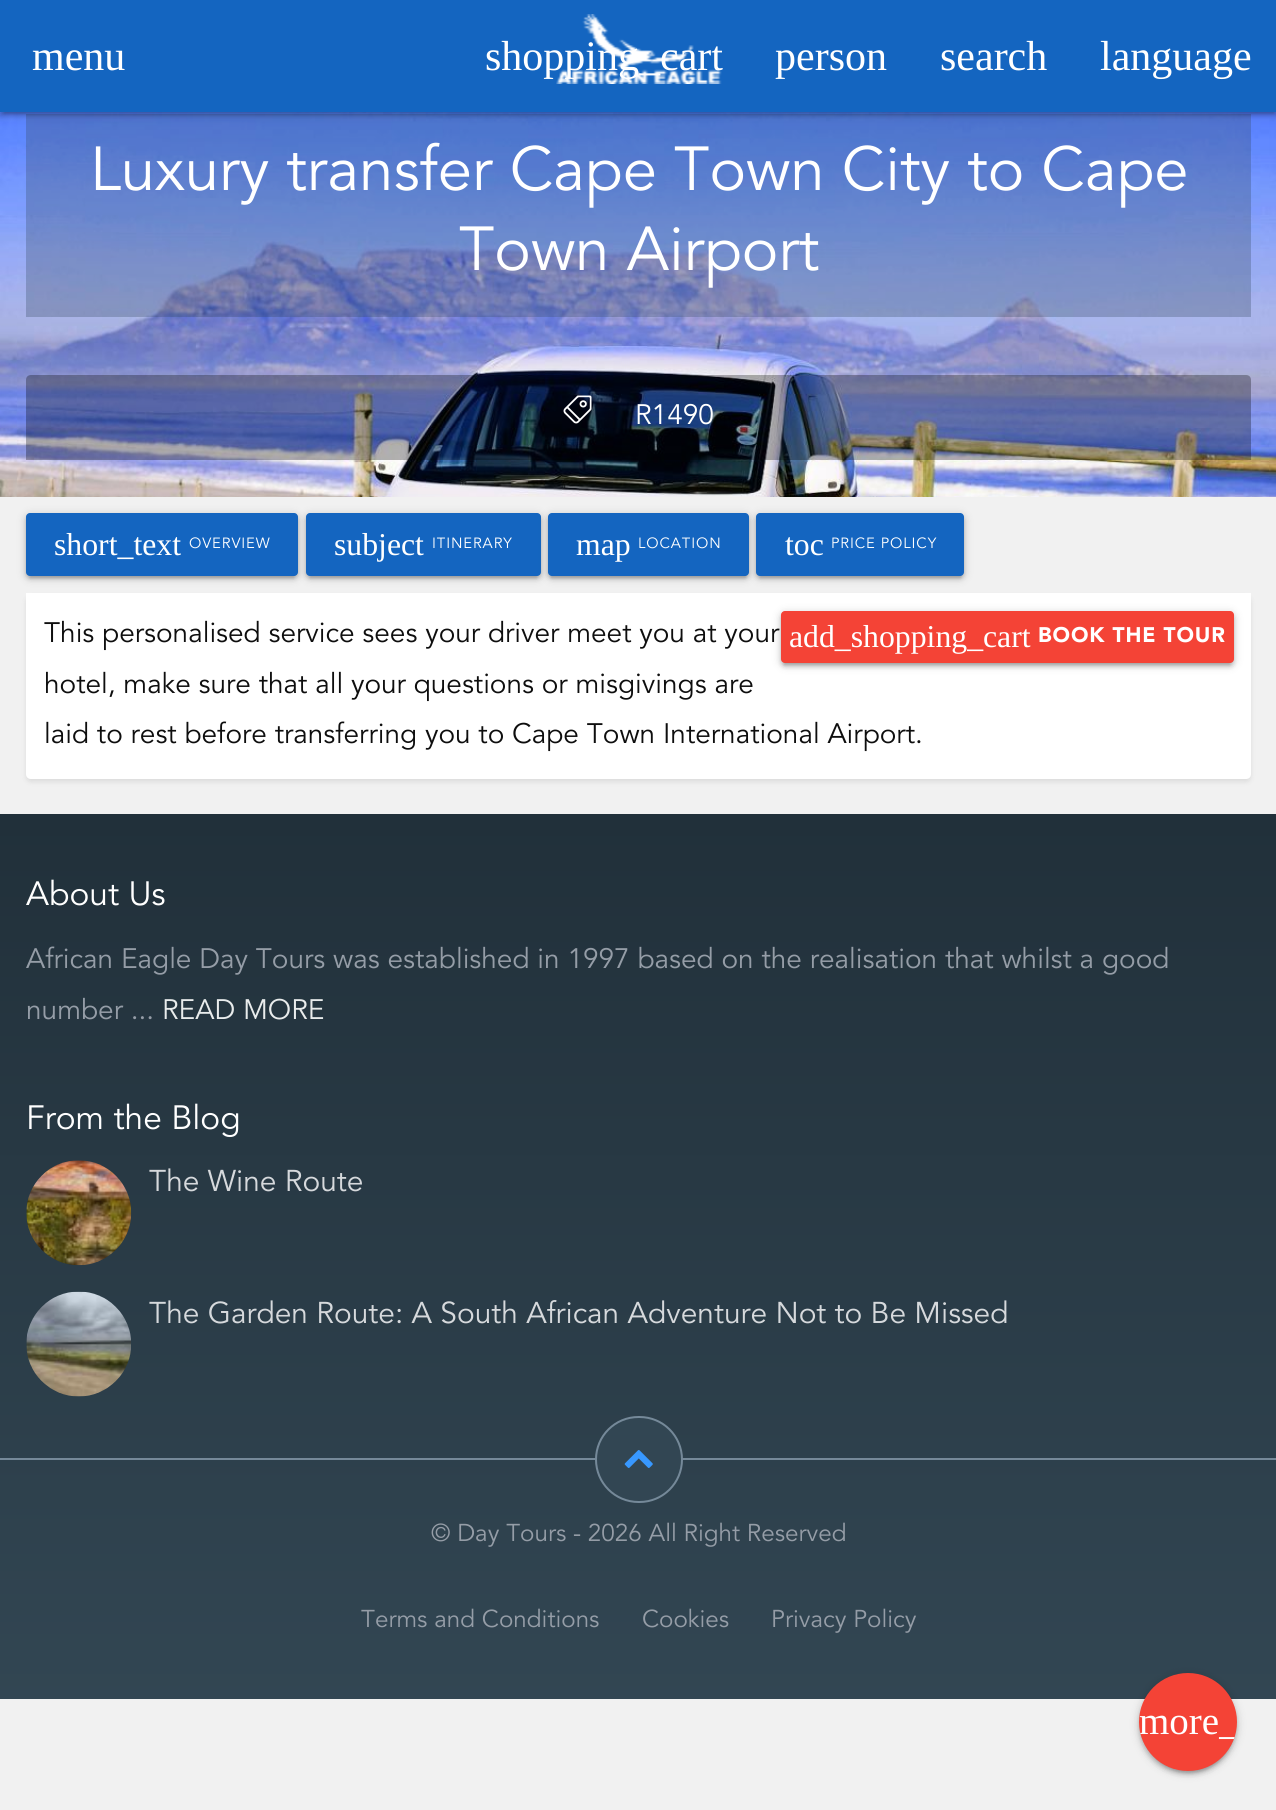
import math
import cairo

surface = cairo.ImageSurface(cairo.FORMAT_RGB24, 1276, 1810)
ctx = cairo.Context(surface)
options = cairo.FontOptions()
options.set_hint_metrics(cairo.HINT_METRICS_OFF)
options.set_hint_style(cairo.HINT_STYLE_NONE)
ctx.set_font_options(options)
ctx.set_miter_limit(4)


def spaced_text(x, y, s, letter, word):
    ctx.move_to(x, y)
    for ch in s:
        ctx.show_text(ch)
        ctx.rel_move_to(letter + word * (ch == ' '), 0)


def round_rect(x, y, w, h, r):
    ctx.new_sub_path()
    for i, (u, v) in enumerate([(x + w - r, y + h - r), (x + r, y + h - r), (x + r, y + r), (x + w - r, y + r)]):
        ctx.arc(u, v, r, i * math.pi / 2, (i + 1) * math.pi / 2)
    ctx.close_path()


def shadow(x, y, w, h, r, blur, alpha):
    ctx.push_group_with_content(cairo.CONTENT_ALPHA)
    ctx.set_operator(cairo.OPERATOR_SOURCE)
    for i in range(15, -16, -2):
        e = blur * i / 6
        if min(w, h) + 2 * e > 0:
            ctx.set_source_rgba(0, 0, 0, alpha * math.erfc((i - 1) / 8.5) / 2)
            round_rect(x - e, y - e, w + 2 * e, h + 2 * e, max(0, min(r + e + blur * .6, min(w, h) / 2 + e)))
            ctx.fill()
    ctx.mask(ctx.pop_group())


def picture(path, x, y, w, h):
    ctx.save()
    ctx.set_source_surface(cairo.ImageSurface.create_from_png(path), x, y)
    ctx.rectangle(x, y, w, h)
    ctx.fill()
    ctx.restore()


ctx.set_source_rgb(0.945, 0.945, 0.945)
ctx.paint()
picture("img2.png", 0, 112, 1276, 385)
ctx.set_source_rgba(0.2, 0.278, 0.376, 0.3)
ctx.rectangle(26, 114, 1225, 203)
ctx.fill()
ctx.set_source_rgb(0, 0, 0)
shadow(0, 2, 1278, 112, 0, 4.5, 0.2)
shadow(4, 9, 1270, 105, 0, 1, 0.12)
shadow(0, 4, 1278, 112, 0, 2, 0.14)
ctx.set_source_rgb(0.082, 0.396, 0.753)
ctx.rectangle(0, 0, 1276, 112)
ctx.fill()
ctx.select_font_face("Liberation Serif")
ctx.set_font_size(42)
ctx.set_source_rgb(1, 1, 1)
ctx.move_to(485, 70)
ctx.show_text("shopping_cart")
picture("img1.png", 556, 14, 166, 70)
ctx.move_to(32, 70)
ctx.show_text("menu")
ctx.move_to(775, 70)
ctx.show_text("person")
ctx.move_to(940, 70)
ctx.show_text("search")
ctx.move_to(1100, 70)
ctx.show_text("language")
ctx.select_font_face("Avenir")
ctx.set_font_size(61.6)
ctx.move_to(90, 190)
ctx.show_text("Luxury transfer Cape Town City to Cape")
ctx.move_to(459, 270)
ctx.show_text("Town Airport")
ctx.set_source_rgba(0, 0, 0, 0.3)
ctx.new_path()
ctx.move_to(31, 375)
ctx.line_to(1246, 375)
ctx.curve_to(1249, 375, 1251, 377, 1251, 380)
ctx.line_to(1251, 460)
ctx.line_to(26, 460)
ctx.line_to(26, 380)
ctx.curve_to(26, 377, 28, 375, 31, 375)
ctx.close_path()
ctx.fill()
picture("img3.png", 563, 395, 29, 29)
ctx.set_font_size(28)
ctx.set_source_rgb(1, 1, 1)
ctx.move_to(635, 424)
ctx.show_text("R1490")
ctx.set_source_rgb(0, 0, 0)
shadow(26, 515, 272, 63, 4, 4.5, 0.2)
shadow(30, 522, 264, 56, 0, 1, 0.12)
shadow(26, 516, 272, 63, 4, 2, 0.14)
ctx.set_source_rgb(0.082, 0.396, 0.753)
round_rect(26, 513, 272, 63, 4)
ctx.fill()
ctx.select_font_face("Liberation Serif")
ctx.set_font_size(31.75)
ctx.set_source_rgb(1, 1, 1)
ctx.move_to(54, 555)
ctx.show_text("short_text")
ctx.select_font_face("Avenir")
ctx.set_font_size(14.75)
spaced_text(189, 548, "OVERVIEW", 0.9, 0)
ctx.set_source_rgb(0, 0, 0)
shadow(306, 515, 235, 63, 4, 4.5, 0.2)
shadow(310, 522, 227, 56, 0, 1, 0.12)
shadow(306, 516, 235, 63, 4, 2, 0.14)
ctx.set_source_rgb(0.082, 0.396, 0.753)
round_rect(306, 513, 235, 63, 4)
ctx.fill()
ctx.select_font_face("Liberation Serif")
ctx.set_font_size(31.75)
ctx.set_source_rgb(1, 1, 1)
ctx.move_to(334, 555)
ctx.show_text("subject")
ctx.select_font_face("Avenir")
ctx.set_font_size(14.75)
spaced_text(432, 548, "ITINERARY", 0.9, 0)
ctx.set_source_rgb(0, 0, 0)
shadow(548, 515, 201, 63, 4, 4.5, 0.2)
shadow(551, 522, 195, 56, 0, 1, 0.12)
shadow(548, 516, 201, 63, 4, 2, 0.14)
ctx.set_source_rgb(0.082, 0.396, 0.753)
round_rect(548, 513, 201, 63, 4)
ctx.fill()
ctx.select_font_face("Liberation Serif")
ctx.set_font_size(31.75)
ctx.set_source_rgb(1, 1, 1)
ctx.move_to(576, 555)
ctx.show_text("map")
ctx.select_font_face("Avenir")
ctx.set_font_size(14.75)
spaced_text(638, 548, "LOCATION", 0.9, 0)
ctx.set_source_rgb(0, 0, 0)
shadow(756, 515, 208, 63, 4, 4.5, 0.2)
shadow(760, 522, 201, 56, 0, 1, 0.12)
shadow(756, 516, 208, 63, 4, 2, 0.14)
ctx.set_source_rgb(0.082, 0.396, 0.753)
round_rect(756, 513, 208, 63, 4)
ctx.fill()
ctx.select_font_face("Liberation Serif")
ctx.set_font_size(31.75)
ctx.set_source_rgb(1, 1, 1)
ctx.move_to(785, 555)
ctx.show_text("toc")
ctx.select_font_face("Avenir")
ctx.set_font_size(14.75)
spaced_text(831, 548, "PRICE POLICY", 0.9, 0)
ctx.set_source_rgb(0, 0, 0)
shadow(26, 597, 1225, 185, 5, 2.5, 0.09)
ctx.set_source_rgb(1, 1, 1)
ctx.new_path()
ctx.move_to(26, 593)
ctx.line_to(1251, 593)
ctx.line_to(1251, 774)
ctx.curve_to(1251, 777, 1249, 779, 1246, 779)
ctx.line_to(31, 779)
ctx.curve_to(28, 779, 26, 777, 26, 774)
ctx.close_path()
ctx.fill()
ctx.set_source_rgb(0, 0, 0)
shadow(781, 613, 453, 52, 4, 4.5, 0.2)
shadow(781, 614, 453, 53, 4, 2, 0.14)
ctx.set_font_size(28)
ctx.set_source_rgb(0.055, 0.055, 0.055)
ctx.move_to(44, 642)
ctx.show_text("This personalised service sees your driver meet you at your")
ctx.move_to(44, 693)
ctx.show_text("hotel, make sure that all your questions or misgivings are")
ctx.move_to(44, 743)
ctx.show_text("laid to rest before transferring you to Cape Town International Airport.")
ctx.set_source_rgb(0, 0, 0)
shadow(784, 620, 446, 45, 0, 1, 0.12)
ctx.set_source_rgb(0.957, 0.263, 0.212)
round_rect(781, 611, 453, 52, 4)
ctx.fill()
ctx.select_font_face("Liberation Serif")
ctx.set_font_size(31.75)
ctx.set_source_rgb(1, 1, 1)
ctx.move_to(789, 647)
ctx.show_text("add_shopping_cart")
ctx.select_font_face("Avenir Black")
ctx.set_font_size(21)
spaced_text(1038, 642, "BOOK THE TOUR", 0.9, 0)
gradient = cairo.LinearGradient(639, 814, 639, 1699)
gradient.add_color_stop_rgba(0, 0.129, 0.188, 0.227, 1)
gradient.add_color_stop_rgba(1, 0.196, 0.275, 0.325, 1)
ctx.set_source(gradient)
ctx.rectangle(0, 814, 1276, 885)
ctx.fill()
ctx.select_font_face("Avenir")
ctx.set_font_size(33.5)
ctx.set_source_rgb(1, 1, 1)
ctx.move_to(26, 905)
ctx.show_text("About Us")
ctx.set_font_size(28)
ctx.set_source_rgb(0.584, 0.616, 0.655)
ctx.move_to(26, 968)
ctx.show_text("African Eagle Day Tours was established in 1997 based on the realisation that whilst a good")
ctx.move_to(26, 1019)
ctx.show_text("number ...")
ctx.set_source_rgb(0.914, 0.922, 0.925)
ctx.move_to(162, 1019)
ctx.show_text("READ MORE")
ctx.set_font_size(33.5)
ctx.set_source_rgb(1, 1, 1)
ctx.move_to(26, 1129)
ctx.show_text("From the Blog")
picture("img4.png", 26, 1160, 106, 106)
ctx.set_font_size(29.9)
ctx.set_source_rgb(0.839, 0.851, 0.863)
ctx.move_to(149, 1191)
ctx.show_text("The Wine Route")
picture("img5.png", 26, 1291, 105, 106)
ctx.move_to(149, 1323)
ctx.show_text("The Garden Route: A South African Adventure Not to Be Missed")
ctx.set_source_rgb(0.459, 0.537, 0.6)
ctx.rectangle(0, 1458, 1276, 2)
ctx.fill()
ctx.set_source_rgb(0.196, 0.275, 0.325)
round_rect(596, 1417, 86, 85, 42.5)
ctx.fill_preserve()
ctx.set_source_rgb(0.459, 0.537, 0.6)
ctx.stroke()
picture("img6.png", 624, 1450, 29, 18)
ctx.set_font_size(24.25)
ctx.set_source_rgb(0.584, 0.616, 0.655)
ctx.move_to(431, 1541)
ctx.show_text("© Day Tours - 2026 All Right Reserved")
ctx.move_to(361, 1627)
ctx.show_text("Terms and Conditions")
ctx.move_to(642, 1627)
ctx.show_text("Cookies")
ctx.move_to(771, 1627)
ctx.show_text("Privacy Policy")
ctx.set_source_rgb(0, 0, 0)
shadow(1139, 1675, 98, 98, 49, 4.5, 0.2)
shadow(1143, 1682, 91, 91, 45.5, 1, 0.12)
shadow(1139, 1677, 98, 98, 49, 2, 0.14)
ctx.set_source_rgb(0.957, 0.263, 0.212)
ctx.arc(1188, 1722, 49, 0, 2 * math.pi)
ctx.fill()
ctx.save()
round_rect(1139, 1673, 98, 98, 49)
ctx.clip()
ctx.select_font_face("Liberation Serif")
ctx.set_font_size(39)
ctx.set_source_rgb(1, 1, 1)
ctx.move_to(1139, 1734)
ctx.show_text("more_")
ctx.restore()
surface.write_to_png("page.png")
